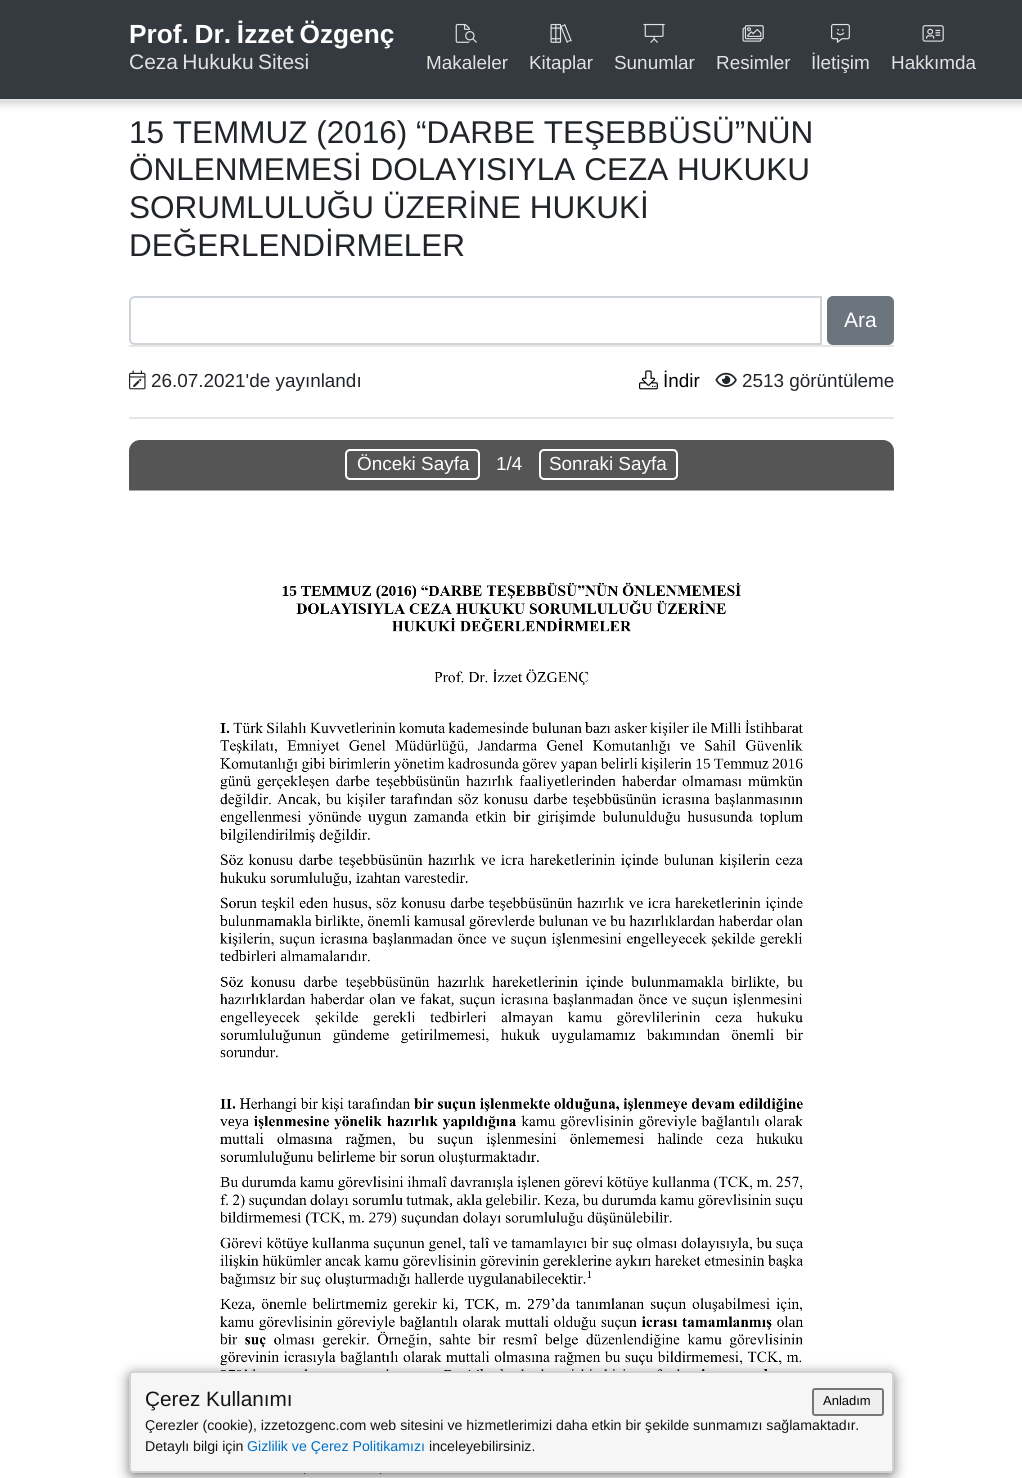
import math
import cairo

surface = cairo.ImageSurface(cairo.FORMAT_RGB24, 1022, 1478)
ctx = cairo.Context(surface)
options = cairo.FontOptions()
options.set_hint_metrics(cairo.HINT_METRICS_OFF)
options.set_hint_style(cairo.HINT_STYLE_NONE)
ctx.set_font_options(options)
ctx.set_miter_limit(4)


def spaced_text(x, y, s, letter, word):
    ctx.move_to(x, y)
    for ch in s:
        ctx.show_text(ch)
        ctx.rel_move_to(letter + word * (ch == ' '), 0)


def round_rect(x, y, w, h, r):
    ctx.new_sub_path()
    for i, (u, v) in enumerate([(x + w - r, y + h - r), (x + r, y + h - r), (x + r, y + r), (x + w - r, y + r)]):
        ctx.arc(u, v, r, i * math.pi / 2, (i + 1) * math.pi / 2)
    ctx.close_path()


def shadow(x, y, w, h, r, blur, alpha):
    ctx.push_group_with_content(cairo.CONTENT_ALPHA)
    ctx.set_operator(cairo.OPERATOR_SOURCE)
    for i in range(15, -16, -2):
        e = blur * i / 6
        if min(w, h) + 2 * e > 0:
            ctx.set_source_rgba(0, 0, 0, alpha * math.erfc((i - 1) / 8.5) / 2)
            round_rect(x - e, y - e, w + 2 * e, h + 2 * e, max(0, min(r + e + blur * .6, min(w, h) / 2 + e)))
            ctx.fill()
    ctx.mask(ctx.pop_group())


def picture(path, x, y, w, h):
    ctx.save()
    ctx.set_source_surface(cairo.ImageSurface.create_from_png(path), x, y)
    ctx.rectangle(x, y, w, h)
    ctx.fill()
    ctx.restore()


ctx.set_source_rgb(1, 1, 1)
ctx.paint()
ctx.set_source_rgb(0, 0, 0)
shadow(0, 2, 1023, 100, 0, 5, 0.25)
ctx.set_source_rgb(0.204, 0.227, 0.251)
ctx.rectangle(0, 0, 1022, 99)
ctx.fill()
ctx.set_source_rgb(0.871, 0.886, 0.902)
ctx.rectangle(0, 99, 1022, 2)
ctx.fill()
ctx.select_font_face("Liberation Sans", cairo.FONT_SLANT_NORMAL, cairo.FONT_WEIGHT_BOLD)
ctx.set_font_size(26.25)
ctx.set_source_rgb(1, 1, 1)
spaced_text(129, 43, "Prof. Dr. İzzet Özgenç", 0, -1.5)
ctx.select_font_face("Liberation Sans")
ctx.set_font_size(21)
ctx.set_source_rgb(0.886, 0.886, 0.886)
spaced_text(129, 69, "Ceza Hukuku Sitesi", 0, -1.5)
picture("img1.png", 455, 23, 22, 20)
ctx.set_font_size(18.9)
ctx.move_to(426, 69)
ctx.show_text("Makaleler")
picture("img2.png", 550, 23, 22, 20)
ctx.move_to(529, 69)
ctx.show_text("Kitaplar")
picture("img3.png", 643, 23, 22, 20)
ctx.move_to(614, 69)
ctx.show_text("Sunumlar")
picture("img4.png", 742, 25, 22, 17)
ctx.move_to(716, 69)
ctx.show_text("Resimler")
picture("img5.png", 831, 23, 19, 20)
ctx.move_to(811, 69)
ctx.show_text("İletişim")
picture("img6.png", 922, 25, 22, 17)
ctx.move_to(891, 69)
ctx.show_text("Hakkımda")
ctx.set_font_size(31.5)
ctx.set_source_rgb(0.129, 0.145, 0.161)
ctx.move_to(129, 143)
ctx.show_text("15 TEMMUZ (2016) “DARBE TEŞEBBÜSÜ”NÜN")
ctx.move_to(129, 180)
ctx.show_text("ÖNLENMEMESİ DOLAYISIYLA CEZA HUKUKU")
ctx.move_to(129, 218)
ctx.show_text("SORUMLULUĞU ÜZERİNE HUKUKİ")
ctx.move_to(129, 256)
ctx.show_text("DEĞERLENDİRMELER")
ctx.new_path()
ctx.move_to(135, 297)
ctx.line_to(821, 297)
ctx.line_to(821, 344)
ctx.line_to(135, 344)
ctx.curve_to(132, 344, 130, 342, 130, 339)
ctx.line_to(130, 302)
ctx.curve_to(130, 299, 132, 297, 135, 297)
ctx.close_path()
ctx.set_source_rgb(0.808, 0.831, 0.855)
ctx.stroke()
ctx.set_source_rgb(0.424, 0.459, 0.49)
round_rect(828, 297, 65, 47, 5)
ctx.fill_preserve()
ctx.stroke()
ctx.set_font_size(21)
ctx.set_source_rgb(1, 1, 1)
ctx.move_to(844, 327)
ctx.show_text("Ara")
ctx.set_source_rgb(0.902, 0.902, 0.902)
ctx.rectangle(129, 345, 765, 2)
ctx.fill()
picture("img7.png", 129, 370, 17, 20)
ctx.set_font_size(18.9)
ctx.set_source_rgb(0.129, 0.145, 0.161)
ctx.move_to(151, 387)
ctx.show_text("26.07.2021'de yayınlandı")
picture("img8.png", 639, 370, 19, 20)
ctx.set_source_rgb(0, 0, 0)
ctx.move_to(663, 387)
ctx.show_text("İndir")
picture("img9.png", 715, 372, 22, 15)
ctx.set_source_rgb(0.129, 0.145, 0.161)
ctx.move_to(742, 387)
ctx.show_text("2513 görüntüleme")
ctx.set_source_rgb(0.902, 0.902, 0.902)
ctx.rectangle(129, 417, 765, 2)
ctx.fill()
ctx.set_source_rgb(0.333, 0.333, 0.333)
ctx.new_path()
ctx.move_to(140, 440)
ctx.line_to(883, 440)
ctx.curve_to(889, 440, 894, 445, 894, 451)
ctx.line_to(894, 491)
ctx.line_to(129, 491)
ctx.line_to(129, 451)
ctx.curve_to(129, 445, 134, 440, 140, 440)
ctx.close_path()
ctx.fill()
round_rect(346, 450, 133, 29, 4)
ctx.set_source_rgb(1, 1, 1)
ctx.stroke()
ctx.move_to(357, 470)
ctx.show_text("Önceki Sayfa")
ctx.move_to(496, 470)
ctx.show_text("1/4")
round_rect(540, 450, 137, 29, 4)
ctx.stroke()
ctx.move_to(549, 470)
ctx.show_text("Sonraki Sayfa")
picture("img10.png", 129, 490, 765, 985)
ctx.set_source_rgb(0, 0, 0)
shadow(132, 1377, 759, 96, 1, 7.5, 0.75)
ctx.set_source_rgb(0.961, 0.961, 0.961)
round_rect(130, 1372, 763, 100, 3)
ctx.fill_preserve()
ctx.set_source_rgb(0.824, 0.824, 0.824)
ctx.stroke()
ctx.set_font_size(20.75)
ctx.set_source_rgb(0.082, 0.082, 0.082)
ctx.move_to(145, 1406)
ctx.show_text("Çerez Kullanımı")
ctx.set_source_rgb(0.937, 0.937, 0.937)
round_rect(813, 1389, 70, 26, 2)
ctx.fill_preserve()
ctx.set_source_rgb(0.463, 0.463, 0.463)
ctx.stroke()
ctx.set_font_size(13)
ctx.set_source_rgb(0, 0, 0)
ctx.move_to(823, 1405)
ctx.show_text("Anladım")
ctx.set_font_size(14.17)
ctx.set_source_rgb(0.082, 0.082, 0.082)
ctx.move_to(145, 1430)
ctx.show_text("Çerezler (cookie), izzetozgenc.com web sitesini ve hizmetlerimizi daha etkin bir şekilde sunmamızı sağlamaktadır.")
ctx.move_to(145, 1451)
ctx.show_text("Detaylı bilgi için")
ctx.set_source_rgb(0, 0.443, 0.773)
ctx.move_to(247, 1451)
ctx.show_text("Gizlilik ve Çerez Politikamızı")
ctx.set_source_rgb(0.082, 0.082, 0.082)
ctx.move_to(429, 1451)
ctx.show_text("inceleyebilirsiniz.")
surface.write_to_png("page.png")
